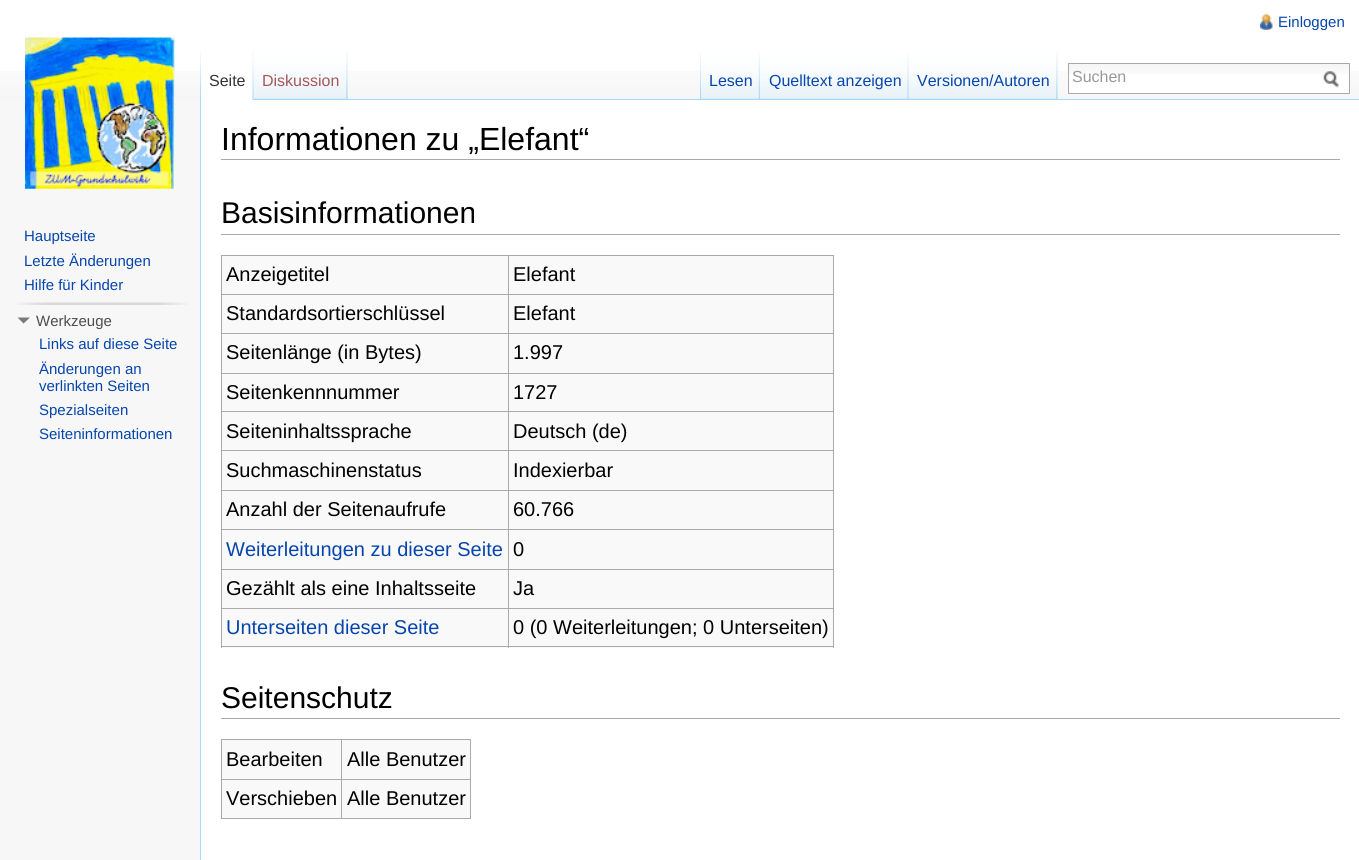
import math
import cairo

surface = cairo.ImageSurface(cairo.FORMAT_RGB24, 1359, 860)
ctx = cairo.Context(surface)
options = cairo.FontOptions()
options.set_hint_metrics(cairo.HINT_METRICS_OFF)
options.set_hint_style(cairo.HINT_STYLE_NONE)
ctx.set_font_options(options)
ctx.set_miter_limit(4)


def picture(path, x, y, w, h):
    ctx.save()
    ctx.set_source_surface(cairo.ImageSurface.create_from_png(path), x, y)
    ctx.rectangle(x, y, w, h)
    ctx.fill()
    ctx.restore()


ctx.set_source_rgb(0.965, 0.965, 0.965)
ctx.paint()
ctx.set_source_rgb(1, 1, 1)
ctx.rectangle(0, 0, 1359, 71)
ctx.fill()
picture("img1.png", 0, 71, 1359, 29)
picture("img2.png", 1260, 13, 13, 17)
ctx.select_font_face("Liberation Sans")
ctx.set_font_size(15)
ctx.set_source_rgb(0.024, 0.271, 0.678)
ctx.move_to(1278, 27)
ctx.show_text("Einloggen")
picture("img3.png", 200, 50, 1, 49)
ctx.set_source_rgb(1, 1, 1)
ctx.rectangle(201, 71, 53, 29)
ctx.fill()
picture("img4.png", 252, 52, 2, 48)
ctx.set_font_size(16)
ctx.set_source_rgb(0.2, 0.2, 0.2)
ctx.move_to(209, 86)
ctx.show_text("Seite")
ctx.set_source_rgb(0.953, 0.953, 0.953)
ctx.rectangle(347, 50, 1, 50)
ctx.fill()
picture("img5.png", 253, 50, 95, 50)
picture("img6.png", 346, 52, 2, 48)
ctx.set_source_rgb(0.647, 0.345, 0.345)
ctx.move_to(262, 86)
ctx.show_text("Diskussion")
picture("img7.png", 700, 50, 2, 49)
ctx.set_source_rgb(0.655, 0.843, 0.976)
ctx.rectangle(348, 99, 1011, 1)
ctx.fill()
picture("img8.png", 701, 50, 59, 50)
picture("img9.png", 758, 50, 2, 49)
ctx.set_source_rgb(0.024, 0.271, 0.678)
ctx.move_to(709, 86)
ctx.show_text("Lesen")
picture("img10.png", 760, 50, 149, 50)
picture("img11.png", 907, 53, 2, 47)
ctx.move_to(769, 86)
ctx.show_text("Quelltext anzeigen")
ctx.set_source_rgb(0.953, 0.953, 0.953)
ctx.rectangle(1057, 50, 1, 50)
ctx.fill()
picture("img12.png", 908, 50, 150, 50)
picture("img6.png", 1056, 52, 2, 48)
ctx.set_source_rgb(0.024, 0.271, 0.678)
ctx.move_to(917, 86)
ctx.show_text("Versionen/Autoren")
ctx.set_source_rgb(1, 1, 1)
ctx.rectangle(1069, 74, 280, 19)
ctx.fill()
picture("img13.png", 1067, 64, 282, 10)
ctx.rectangle(1068.5, 63.5, 281, 30)
ctx.set_source_rgb(0.667, 0.667, 0.667)
ctx.set_line_width(1)
ctx.stroke()
ctx.set_source_rgb(0.6, 0.6, 0.6)
ctx.move_to(1072, 82)
ctx.show_text("Suchen")
picture("img14.png", 1323, 71, 16, 17)
picture("img15.png", 25, 37, 150, 152)
ctx.set_font_size(15)
ctx.set_source_rgb(0.024, 0.271, 0.678)
ctx.move_to(24, 241)
ctx.show_text("Hauptseite")
ctx.move_to(24, 266)
ctx.show_text("Letzte Änderungen")
ctx.move_to(24, 290)
ctx.show_text("Hilfe für Kinder")
picture("img16.png", 17, 302, 170, 3)
ctx.set_source_rgb(0.475, 0.475, 0.475)
ctx.new_path()
ctx.move_to(30, 317.5)
ctx.line_to(23.5, 323.5)
ctx.line_to(17.5, 317.5)
ctx.close_path()
ctx.fill()
ctx.set_source_rgb(0.302, 0.302, 0.302)
ctx.move_to(36, 326)
ctx.show_text("Werkzeuge")
ctx.set_source_rgb(0.024, 0.271, 0.678)
ctx.move_to(39, 349)
ctx.show_text("Links auf diese Seite")
ctx.move_to(39, 374)
ctx.show_text("Änderungen an")
ctx.move_to(39, 391)
ctx.show_text("verlinkten Seiten")
ctx.move_to(39, 415)
ctx.show_text("Spezialseiten")
ctx.move_to(39, 439)
ctx.show_text("Seiteninformationen")
ctx.set_source_rgb(1, 1, 1)
ctx.rectangle(201, 100, 1158, 760)
ctx.fill()
ctx.set_source_rgb(0.655, 0.843, 0.976)
ctx.rectangle(200, 99, 1, 761)
ctx.fill()
ctx.set_source_rgb(0.667, 0.667, 0.667)
ctx.rectangle(221, 159, 1119, 1)
ctx.fill()
ctx.set_font_size(32)
ctx.set_source_rgb(0, 0, 0)
ctx.move_to(221, 150)
ctx.show_text("Informationen zu „Elefant“")
ctx.set_source_rgb(0.667, 0.667, 0.667)
ctx.rectangle(221, 234, 1119, 1)
ctx.fill()
ctx.set_font_size(30)
ctx.set_source_rgb(0, 0, 0)
ctx.move_to(221, 223)
ctx.show_text("Basisinformationen")
ctx.set_source_rgb(0.976, 0.976, 0.976)
ctx.rectangle(222, 256, 611, 392)
ctx.fill()
ctx.set_source_rgb(0.667, 0.667, 0.667)
ctx.rectangle(221, 255, 613, 1)
ctx.fill()
ctx.rectangle(833, 255, 1, 393)
ctx.fill()
ctx.rectangle(221, 646, 613, 1)
ctx.fill()
ctx.rectangle(221, 255, 1, 393)
ctx.fill()
ctx.set_font_size(20)
ctx.set_source_rgb(0, 0, 0)
ctx.move_to(226, 281)
ctx.show_text("Anzeigetitel")
ctx.set_source_rgb(0.667, 0.667, 0.667)
ctx.rectangle(508, 294, 326, 1)
ctx.fill()
ctx.rectangle(508, 333, 326, 1)
ctx.fill()
ctx.rectangle(508, 373, 326, 1)
ctx.fill()
ctx.rectangle(508, 411, 326, 1)
ctx.fill()
ctx.rectangle(508, 450, 326, 1)
ctx.fill()
ctx.rectangle(508, 490, 326, 1)
ctx.fill()
ctx.rectangle(508, 529, 326, 1)
ctx.fill()
ctx.rectangle(508, 569, 326, 1)
ctx.fill()
ctx.rectangle(508, 608, 326, 1)
ctx.fill()
ctx.rectangle(508, 608, 1, 40)
ctx.fill()
ctx.rectangle(221, 608, 288, 1)
ctx.fill()
ctx.rectangle(508, 569, 1, 40)
ctx.fill()
ctx.rectangle(221, 569, 288, 1)
ctx.fill()
ctx.rectangle(508, 529, 1, 41)
ctx.fill()
ctx.rectangle(221, 529, 288, 1)
ctx.fill()
ctx.rectangle(508, 490, 1, 40)
ctx.fill()
ctx.rectangle(221, 490, 288, 1)
ctx.fill()
ctx.rectangle(508, 450, 1, 41)
ctx.fill()
ctx.rectangle(221, 450, 288, 1)
ctx.fill()
ctx.rectangle(508, 411, 1, 40)
ctx.fill()
ctx.rectangle(221, 411, 288, 1)
ctx.fill()
ctx.rectangle(508, 373, 1, 40)
ctx.fill()
ctx.rectangle(221, 373, 288, 1)
ctx.fill()
ctx.rectangle(508, 333, 1, 41)
ctx.fill()
ctx.rectangle(221, 333, 288, 1)
ctx.fill()
ctx.rectangle(508, 294, 1, 40)
ctx.fill()
ctx.rectangle(221, 294, 288, 1)
ctx.fill()
ctx.rectangle(508, 255, 1, 40)
ctx.fill()
ctx.set_source_rgb(0, 0, 0)
ctx.move_to(513, 281)
ctx.show_text("Elefant")
ctx.move_to(226, 320)
ctx.show_text("Standardsortierschlüssel")
ctx.move_to(513, 320)
ctx.show_text("Elefant")
ctx.move_to(226, 359)
ctx.show_text("Seitenlänge (in Bytes)")
ctx.move_to(513, 359)
ctx.show_text("1.997")
ctx.move_to(226, 399)
ctx.show_text("Seitenkennnummer")
ctx.move_to(513, 399)
ctx.show_text("1727")
ctx.move_to(226, 438)
ctx.show_text("Seiteninhaltssprache")
ctx.move_to(513, 438)
ctx.show_text("Deutsch (de)")
ctx.move_to(226, 477)
ctx.show_text("Suchmaschinenstatus")
ctx.move_to(513, 477)
ctx.show_text("Indexierbar")
ctx.move_to(226, 516)
ctx.show_text("Anzahl der Seitenaufrufe")
ctx.move_to(513, 516)
ctx.show_text("60.766")
ctx.set_source_rgb(0.024, 0.271, 0.678)
ctx.move_to(226, 556)
ctx.show_text("Weiterleitungen zu dieser Seite")
ctx.set_source_rgb(0, 0, 0)
ctx.move_to(513, 556)
ctx.show_text("0")
ctx.move_to(226, 595)
ctx.show_text("Gezählt als eine Inhaltsseite")
ctx.move_to(513, 595)
ctx.show_text("Ja")
ctx.set_source_rgb(0.024, 0.271, 0.678)
ctx.move_to(226, 634)
ctx.show_text("Unterseiten dieser Seite")
ctx.set_source_rgb(0, 0, 0)
ctx.move_to(513, 634)
ctx.show_text("0 (0 Weiterleitungen; 0 Unterseiten)")
ctx.set_source_rgb(0.667, 0.667, 0.667)
ctx.rectangle(221, 718, 1119, 1)
ctx.fill()
ctx.set_font_size(30)
ctx.set_source_rgb(0, 0, 0)
ctx.move_to(221, 708)
ctx.show_text("Seitenschutz")
ctx.set_source_rgb(0.976, 0.976, 0.976)
ctx.rectangle(222, 740, 248, 78)
ctx.fill()
ctx.set_source_rgb(0.667, 0.667, 0.667)
ctx.rectangle(221, 739, 250, 1)
ctx.fill()
ctx.rectangle(470, 739, 1, 80)
ctx.fill()
ctx.rectangle(221, 818, 250, 1)
ctx.fill()
ctx.rectangle(221, 739, 1, 80)
ctx.fill()
ctx.set_font_size(20)
ctx.set_source_rgb(0, 0, 0)
ctx.move_to(226, 766)
ctx.show_text("Bearbeiten")
ctx.set_source_rgb(0.667, 0.667, 0.667)
ctx.rectangle(341, 779, 130, 1)
ctx.fill()
ctx.rectangle(341, 779, 1, 40)
ctx.fill()
ctx.rectangle(221, 779, 122, 1)
ctx.fill()
ctx.rectangle(341, 739, 1, 41)
ctx.fill()
ctx.set_source_rgb(0, 0, 0)
ctx.move_to(347, 766)
ctx.show_text("Alle Benutzer")
ctx.move_to(226, 805)
ctx.show_text("Verschieben")
ctx.move_to(347, 805)
ctx.show_text("Alle Benutzer")
surface.write_to_png("page.png")
